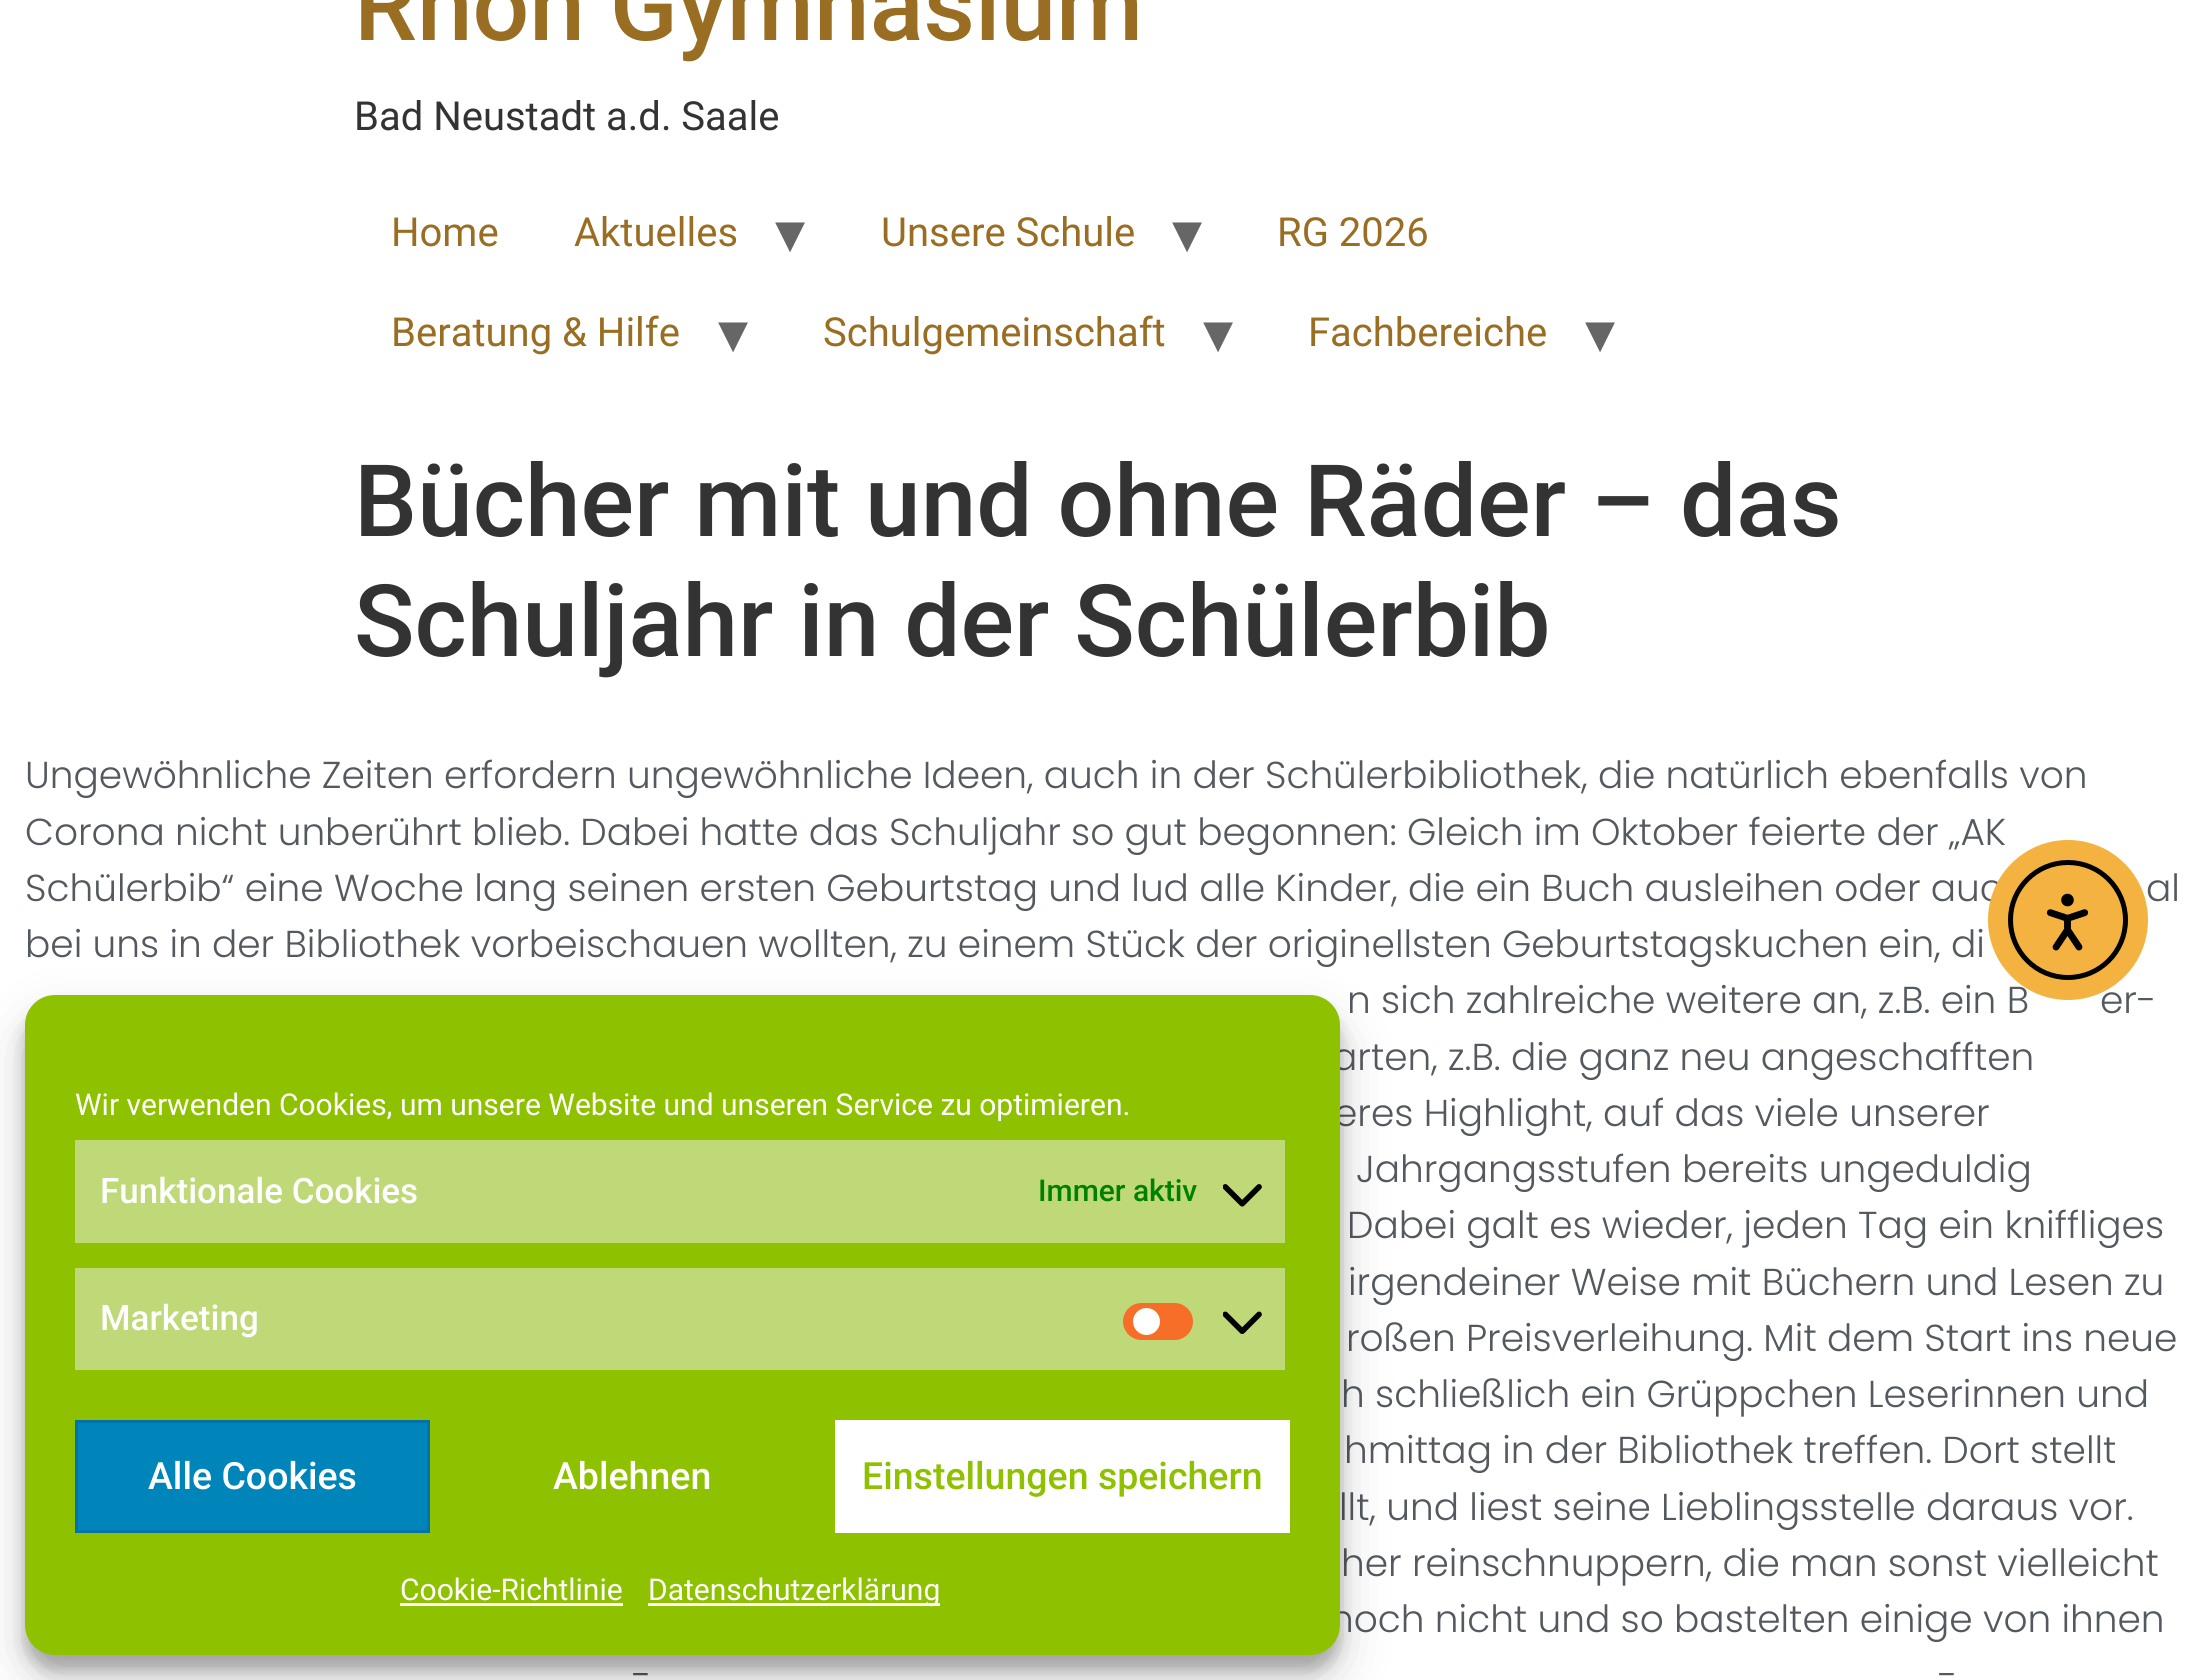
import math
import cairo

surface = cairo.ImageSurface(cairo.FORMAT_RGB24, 2207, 1680)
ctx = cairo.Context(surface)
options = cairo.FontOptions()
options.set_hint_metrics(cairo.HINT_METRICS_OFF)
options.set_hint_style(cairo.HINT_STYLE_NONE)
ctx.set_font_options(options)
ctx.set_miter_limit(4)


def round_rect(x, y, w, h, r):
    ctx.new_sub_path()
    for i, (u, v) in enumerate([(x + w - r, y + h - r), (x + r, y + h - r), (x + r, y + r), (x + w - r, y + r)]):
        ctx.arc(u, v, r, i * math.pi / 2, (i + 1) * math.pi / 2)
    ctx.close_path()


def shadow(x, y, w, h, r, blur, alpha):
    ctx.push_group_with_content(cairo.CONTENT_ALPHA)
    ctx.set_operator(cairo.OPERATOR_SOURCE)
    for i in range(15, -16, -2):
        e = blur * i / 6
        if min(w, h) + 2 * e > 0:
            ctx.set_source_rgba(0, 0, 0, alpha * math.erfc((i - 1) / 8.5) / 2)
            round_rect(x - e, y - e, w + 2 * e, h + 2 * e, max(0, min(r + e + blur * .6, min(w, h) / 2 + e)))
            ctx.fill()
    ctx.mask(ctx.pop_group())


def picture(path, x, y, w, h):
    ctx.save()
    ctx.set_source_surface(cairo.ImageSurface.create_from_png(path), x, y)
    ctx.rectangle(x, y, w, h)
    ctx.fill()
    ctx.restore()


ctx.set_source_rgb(1, 1, 1)
ctx.paint()
ctx.select_font_face("Roboto Medium")
ctx.set_font_size(100)
ctx.set_source_rgb(0.6, 0.431, 0.137)
ctx.move_to(354, 40)
ctx.show_text("Rhön Gymnasium")
ctx.select_font_face("Roboto")
ctx.set_font_size(40)
ctx.set_source_rgb(0.2, 0.2, 0.2)
ctx.move_to(354, 130)
ctx.show_text("Bad Neustadt a.d. Saale")
ctx.set_source_rgb(0.6, 0.431, 0.137)
ctx.move_to(391, 246)
ctx.show_text("Home")
ctx.move_to(574, 246)
ctx.show_text("Aktuelles")
ctx.select_font_face("DejaVu Sans")
ctx.set_font_size(60)
ctx.set_source_rgb(0.4, 0.4, 0.4)
ctx.move_to(775, 253)
ctx.show_text("▾")
ctx.select_font_face("Roboto")
ctx.set_font_size(40)
ctx.set_source_rgb(0.6, 0.431, 0.137)
ctx.move_to(881, 246)
ctx.show_text("Unsere Schule")
ctx.select_font_face("DejaVu Sans")
ctx.set_font_size(60)
ctx.set_source_rgb(0.4, 0.4, 0.4)
ctx.move_to(1172, 253)
ctx.show_text("▾")
ctx.select_font_face("Roboto")
ctx.set_font_size(40)
ctx.set_source_rgb(0.6, 0.431, 0.137)
ctx.move_to(1277, 246)
ctx.show_text("RG 2026")
ctx.move_to(391, 346)
ctx.show_text("Beratung & Hilfe")
ctx.select_font_face("DejaVu Sans")
ctx.set_font_size(60)
ctx.set_source_rgb(0.4, 0.4, 0.4)
ctx.move_to(718, 353)
ctx.show_text("▾")
ctx.select_font_face("Roboto")
ctx.set_font_size(40)
ctx.set_source_rgb(0.6, 0.431, 0.137)
ctx.move_to(823, 346)
ctx.show_text("Schulgemeinschaft")
ctx.select_font_face("DejaVu Sans")
ctx.set_font_size(60)
ctx.set_source_rgb(0.4, 0.4, 0.4)
ctx.move_to(1203, 353)
ctx.show_text("▾")
ctx.select_font_face("Roboto")
ctx.set_font_size(40)
ctx.set_source_rgb(0.6, 0.431, 0.137)
ctx.move_to(1308, 346)
ctx.show_text("Fachbereiche")
ctx.select_font_face("DejaVu Sans")
ctx.set_font_size(60)
ctx.set_source_rgb(0.4, 0.4, 0.4)
ctx.move_to(1585, 353)
ctx.show_text("▾")
ctx.select_font_face("Roboto Medium")
ctx.set_font_size(100)
ctx.set_source_rgb(0.2, 0.2, 0.2)
ctx.move_to(354, 536)
ctx.show_text("Bücher mit und ohne Räder – das")
ctx.move_to(354, 656)
ctx.show_text("Schuljahr in der Schülerbib")
ctx.select_font_face("Poppins Light")
ctx.set_font_size(37.5)
ctx.set_source_rgb(0.329, 0.349, 0.373)
ctx.move_to(25, 788)
ctx.show_text("Ungewöhnliche Zeiten erfordern ungewöhnliche Ideen, auch in der Schülerbibliothek, die natürlich ebenfalls von")
ctx.move_to(25, 845)
ctx.show_text("Corona nicht unberührt blieb. Dabei hatte das Schuljahr so gut begonnen: Gleich im Oktober feierte der „AK")
ctx.move_to(25, 901)
ctx.show_text("Schülerbib“ eine Woche lang seinen ersten Geburtstag und lud alle Kinder, die ein Buch ausleihen oder auc")
ctx.move_to(2146, 901)
ctx.show_text("al")
ctx.move_to(25, 957)
ctx.show_text("bei uns in der Bibliothek vorbeischauen wollten, zu einem Stück der originellsten Geburtstagskuchen ein, di")
ctx.move_to(1347, 1013)
ctx.show_text("n sich zahlreiche weitere an, z.B. ein B")
ctx.move_to(2100, 1013)
ctx.show_text("er-")
ctx.move_to(1332, 1070)
ctx.show_text("arten, z.B. die ganz neu angeschafften")
ctx.move_to(1334, 1126)
ctx.show_text("eres Highlight, auf das viele unserer")
ctx.move_to(1356, 1182)
ctx.show_text("Jahrgangsstufen bereits ungeduldig")
ctx.move_to(1347, 1238)
ctx.show_text("Dabei galt es wieder, jeden Tag ein kniffliges")
ctx.move_to(1348, 1295)
ctx.show_text("irgendeiner Weise mit Büchern und Lesen zu")
ctx.move_to(1346, 1351)
ctx.show_text("roßen Preisverleihung. Mit dem Start ins neue")
ctx.move_to(1341, 1407)
ctx.show_text("h schließlich ein Grüppchen Leserinnen und")
ctx.move_to(1344, 1463)
ctx.show_text("hmittag in der Bibliothek treffen. Dort stellt")
ctx.move_to(1339, 1520)
ctx.show_text("llt, und liest seine Lieblingsstelle daraus vor.")
ctx.move_to(1341, 1576)
ctx.show_text("her reinschnuppern, die man sonst vielleicht")
ctx.move_to(1330, 1632)
ctx.show_text("noch nicht und so bastelten einige von ihnen")
ctx.move_to(632, 1688)
ctx.show_text("-")
ctx.move_to(1938, 1688)
ctx.show_text("-")
ctx.set_source_rgb(0.957, 0.702, 0.251)
ctx.new_path()
ctx.arc(2068, 920, 80, 0, 2 * math.pi)
ctx.fill()
ctx.arc(2068, 920, 57.5, 0, 2 * math.pi)
ctx.set_source_rgb(0, 0, 0)
ctx.set_line_width(5)
ctx.stroke()
picture("img1.png", 2046, 893, 43, 58)
ctx.set_source_rgb(0, 0, 0)
shadow(25, 1010, 1315, 660, 30, 7.5, 0.23)
shadow(25, 1020, 1315, 660, 30, 25, 0.19)
ctx.set_source_rgb(0.557, 0.757, 0)
round_rect(25, 995, 1315, 660, 30)
ctx.fill()
ctx.select_font_face("Roboto")
ctx.set_font_size(30)
ctx.set_source_rgb(1, 1, 1)
ctx.move_to(75, 1115)
ctx.show_text("Wir verwenden Cookies, um unsere Website und unseren Service zu optimieren.")
ctx.set_source_rgb(0.749, 0.847, 0.471)
ctx.rectangle(75, 1140, 1210, 103)
ctx.fill()
ctx.select_font_face("Roboto Medium")
ctx.set_font_size(35)
ctx.set_source_rgb(1, 1, 1)
ctx.move_to(100, 1203)
ctx.show_text("Funktionale Cookies")
ctx.set_font_size(30)
ctx.set_source_rgb(0, 0.502, 0)
ctx.move_to(1038, 1201)
ctx.show_text("Immer aktiv")
picture("img2.png", 1223, 1184, 39, 23)
ctx.set_source_rgb(0.749, 0.847, 0.471)
ctx.rectangle(75, 1268, 1210, 102)
ctx.fill()
ctx.set_font_size(35)
ctx.set_source_rgb(1, 1, 1)
ctx.move_to(100, 1330)
ctx.show_text("Marketing")
ctx.set_source_rgb(0.961, 0.431, 0.157)
round_rect(1123, 1303, 70, 37, 18.5)
ctx.fill()
ctx.set_source_rgb(1, 1, 1)
ctx.arc(1146.5, 1321.5, 13.5, 0, 2 * math.pi)
ctx.fill()
picture("img3.png", 1223, 1311, 39, 23)
ctx.set_source_rgb(0, 0.522, 0.729)
ctx.rectangle(76.5, 1421.5, 352, 110)
ctx.fill_preserve()
ctx.set_source_rgb(0, 0.451, 0.667)
ctx.set_line_width(3)
ctx.stroke()
ctx.set_font_size(37.5)
ctx.set_source_rgb(1, 1, 1)
ctx.move_to(148, 1489)
ctx.show_text("Alle Cookies")
ctx.move_to(553, 1489)
ctx.show_text("Ablehnen")
ctx.rectangle(835, 1420, 455, 113)
ctx.fill()
ctx.set_source_rgb(0.557, 0.757, 0)
ctx.move_to(862, 1489)
ctx.show_text("Einstellungen speichern")
ctx.select_font_face("Roboto")
ctx.set_font_size(30)
ctx.set_source_rgb(1, 1, 1)
ctx.move_to(400, 1600)
ctx.show_text("Cookie-Richtlinie")
ctx.rectangle(400, 1603, 223, 3)
ctx.fill()
ctx.rectangle(648, 1603, 292, 3)
ctx.fill()
ctx.move_to(648, 1600)
ctx.show_text("Datenschutzerklärung")
surface.write_to_png("page.png")
